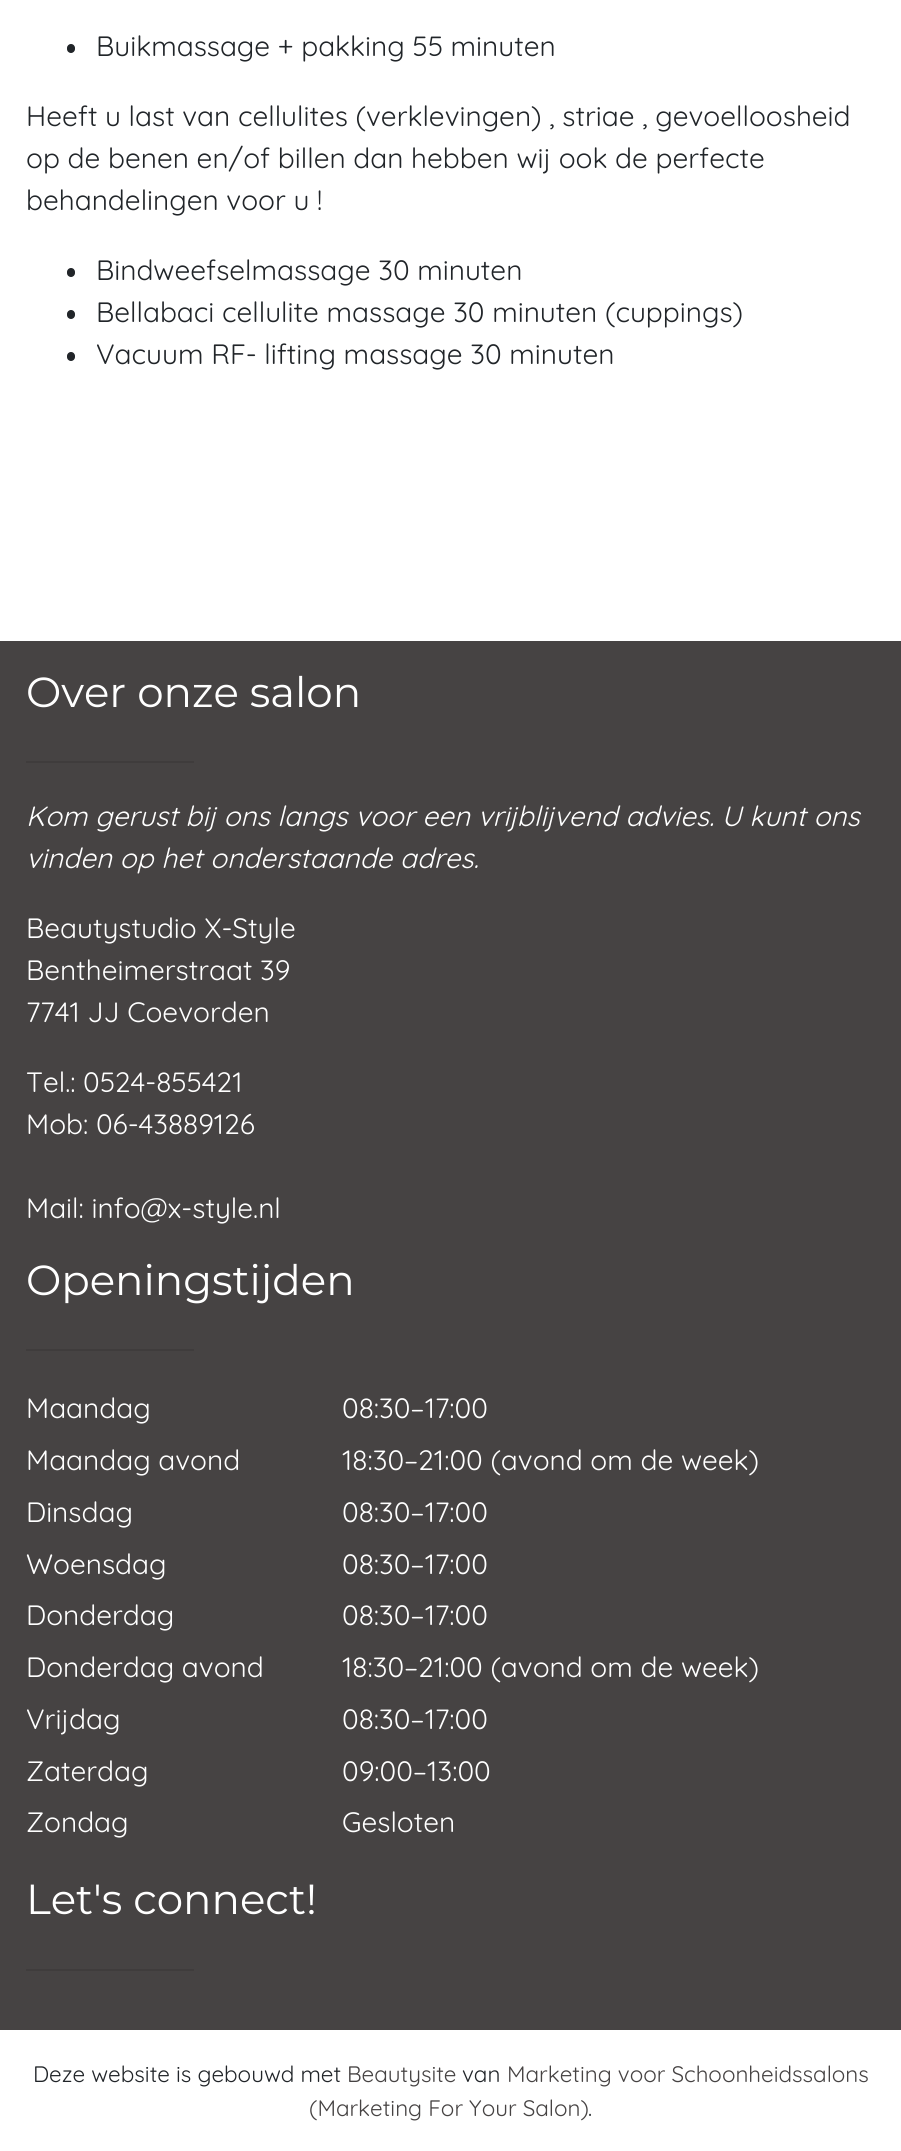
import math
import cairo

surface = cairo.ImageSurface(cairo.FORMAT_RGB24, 901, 2151)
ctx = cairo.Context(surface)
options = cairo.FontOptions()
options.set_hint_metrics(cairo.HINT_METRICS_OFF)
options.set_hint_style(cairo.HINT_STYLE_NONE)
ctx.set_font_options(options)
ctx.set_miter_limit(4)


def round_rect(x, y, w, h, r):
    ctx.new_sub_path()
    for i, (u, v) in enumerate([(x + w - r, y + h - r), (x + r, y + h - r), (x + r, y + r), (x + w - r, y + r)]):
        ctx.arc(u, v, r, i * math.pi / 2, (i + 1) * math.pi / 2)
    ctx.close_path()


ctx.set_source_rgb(1, 1, 1)
ctx.paint()
ctx.set_source_rgb(0.129, 0.145, 0.161)
round_rect(67, 44, 8, 9, 4)
ctx.fill()
ctx.select_font_face("Quicksand Light")
ctx.set_font_size(28)
ctx.move_to(96, 56)
ctx.show_text("Buikmassage + pakking 55 minuten")
ctx.move_to(26, 126)
ctx.show_text("Heeft u last van cellulites (verklevingen) , striae , gevoelloosheid")
ctx.move_to(26, 168)
ctx.show_text("op de benen en/of billen dan hebben wij ook de perfecte")
ctx.move_to(26, 210)
ctx.show_text("behandelingen voor u !")
round_rect(67, 268, 8, 9, 4)
ctx.fill()
ctx.move_to(96, 280)
ctx.show_text("Bindweefselmassage 30 minuten")
round_rect(67, 310, 8, 9, 4)
ctx.fill()
ctx.move_to(96, 322)
ctx.show_text("Bellabaci cellulite massage 30 minuten (cuppings)")
round_rect(67, 352, 8, 9, 4)
ctx.fill()
ctx.move_to(96, 364)
ctx.show_text("Vacuum RF- lifting massage 30 minuten")
ctx.set_source_rgb(0.275, 0.263, 0.263)
ctx.rectangle(0, 641, 901, 1389)
ctx.fill()
ctx.select_font_face("Montserrat Thin")
ctx.set_font_size(42)
ctx.set_source_rgb(1, 1, 1)
ctx.move_to(26, 707)
ctx.show_text("Over onze salon")
ctx.set_source_rgb(0.247, 0.235, 0.235)
ctx.rectangle(26, 761, 168, 2)
ctx.fill()
ctx.select_font_face("Quicksand Light", cairo.FONT_SLANT_ITALIC)
ctx.set_font_size(28)
ctx.set_source_rgb(1, 1, 1)
ctx.move_to(26, 826)
ctx.show_text("Kom gerust bij ons langs voor een vrijblijvend advies. U kunt ons")
ctx.move_to(26, 868)
ctx.show_text("vinden op het onderstaande adres.")
ctx.select_font_face("Quicksand Light")
ctx.move_to(26, 938)
ctx.show_text("Beautystudio X-Style")
ctx.move_to(26, 980)
ctx.show_text("Bentheimerstraat 39")
ctx.move_to(26, 1022)
ctx.show_text("7741 JJ Coevorden")
ctx.move_to(26, 1092)
ctx.show_text("Tel.: 0524-855421")
ctx.move_to(26, 1134)
ctx.show_text("Mob: 06-43889126")
ctx.move_to(26, 1218)
ctx.show_text("Mail: info@x-style.nl")
ctx.select_font_face("Montserrat Thin")
ctx.set_font_size(42)
ctx.move_to(26, 1295)
ctx.show_text("Openingstijden")
ctx.set_source_rgb(0.247, 0.235, 0.235)
ctx.rectangle(26, 1349, 168, 2)
ctx.fill()
ctx.select_font_face("Quicksand Light")
ctx.set_font_size(28)
ctx.set_source_rgb(1, 1, 1)
ctx.move_to(26, 1418)
ctx.show_text("Maandag")
ctx.move_to(342, 1418)
ctx.show_text("08:30–17:00")
ctx.move_to(26, 1470)
ctx.show_text("Maandag avond")
ctx.move_to(342, 1470)
ctx.show_text("18:30–21:00 (avond om de week)")
ctx.move_to(26, 1522)
ctx.show_text("Dinsdag")
ctx.move_to(342, 1522)
ctx.show_text("08:30–17:00")
ctx.move_to(26, 1574)
ctx.show_text("Woensdag")
ctx.move_to(342, 1574)
ctx.show_text("08:30–17:00")
ctx.move_to(26, 1625)
ctx.show_text("Donderdag")
ctx.move_to(342, 1625)
ctx.show_text("08:30–17:00")
ctx.move_to(26, 1677)
ctx.show_text("Donderdag avond")
ctx.move_to(342, 1677)
ctx.show_text("18:30–21:00 (avond om de week)")
ctx.move_to(26, 1729)
ctx.show_text("Vrijdag")
ctx.move_to(342, 1729)
ctx.show_text("08:30–17:00")
ctx.move_to(26, 1781)
ctx.show_text("Zaterdag")
ctx.move_to(342, 1781)
ctx.show_text("09:00–13:00")
ctx.move_to(26, 1832)
ctx.show_text("Zondag")
ctx.move_to(342, 1832)
ctx.show_text("Gesloten")
ctx.select_font_face("Montserrat Thin")
ctx.set_font_size(42)
ctx.move_to(26, 1914)
ctx.show_text("Let's connect!")
ctx.set_source_rgb(0.247, 0.235, 0.235)
ctx.rectangle(26, 1969, 168, 2)
ctx.fill()
ctx.select_font_face("Quicksand Light")
ctx.set_font_size(22.4)
ctx.set_source_rgb(0.129, 0.145, 0.161)
ctx.move_to(33, 2082)
ctx.show_text("Deze website is gebouwd met")
ctx.set_source_rgb(0.275, 0.263, 0.263)
ctx.move_to(347, 2082)
ctx.show_text("Beautysite")
ctx.set_source_rgb(0.129, 0.145, 0.161)
ctx.move_to(462, 2082)
ctx.show_text("van")
ctx.set_source_rgb(0.275, 0.263, 0.263)
ctx.move_to(507, 2082)
ctx.show_text("Marketing voor Schoonheidssalons")
ctx.move_to(309, 2116)
ctx.show_text("(Marketing For Your Salon)")
ctx.set_source_rgb(0.129, 0.145, 0.161)
ctx.move_to(588, 2116)
ctx.show_text(".")
surface.write_to_png("page.png")
